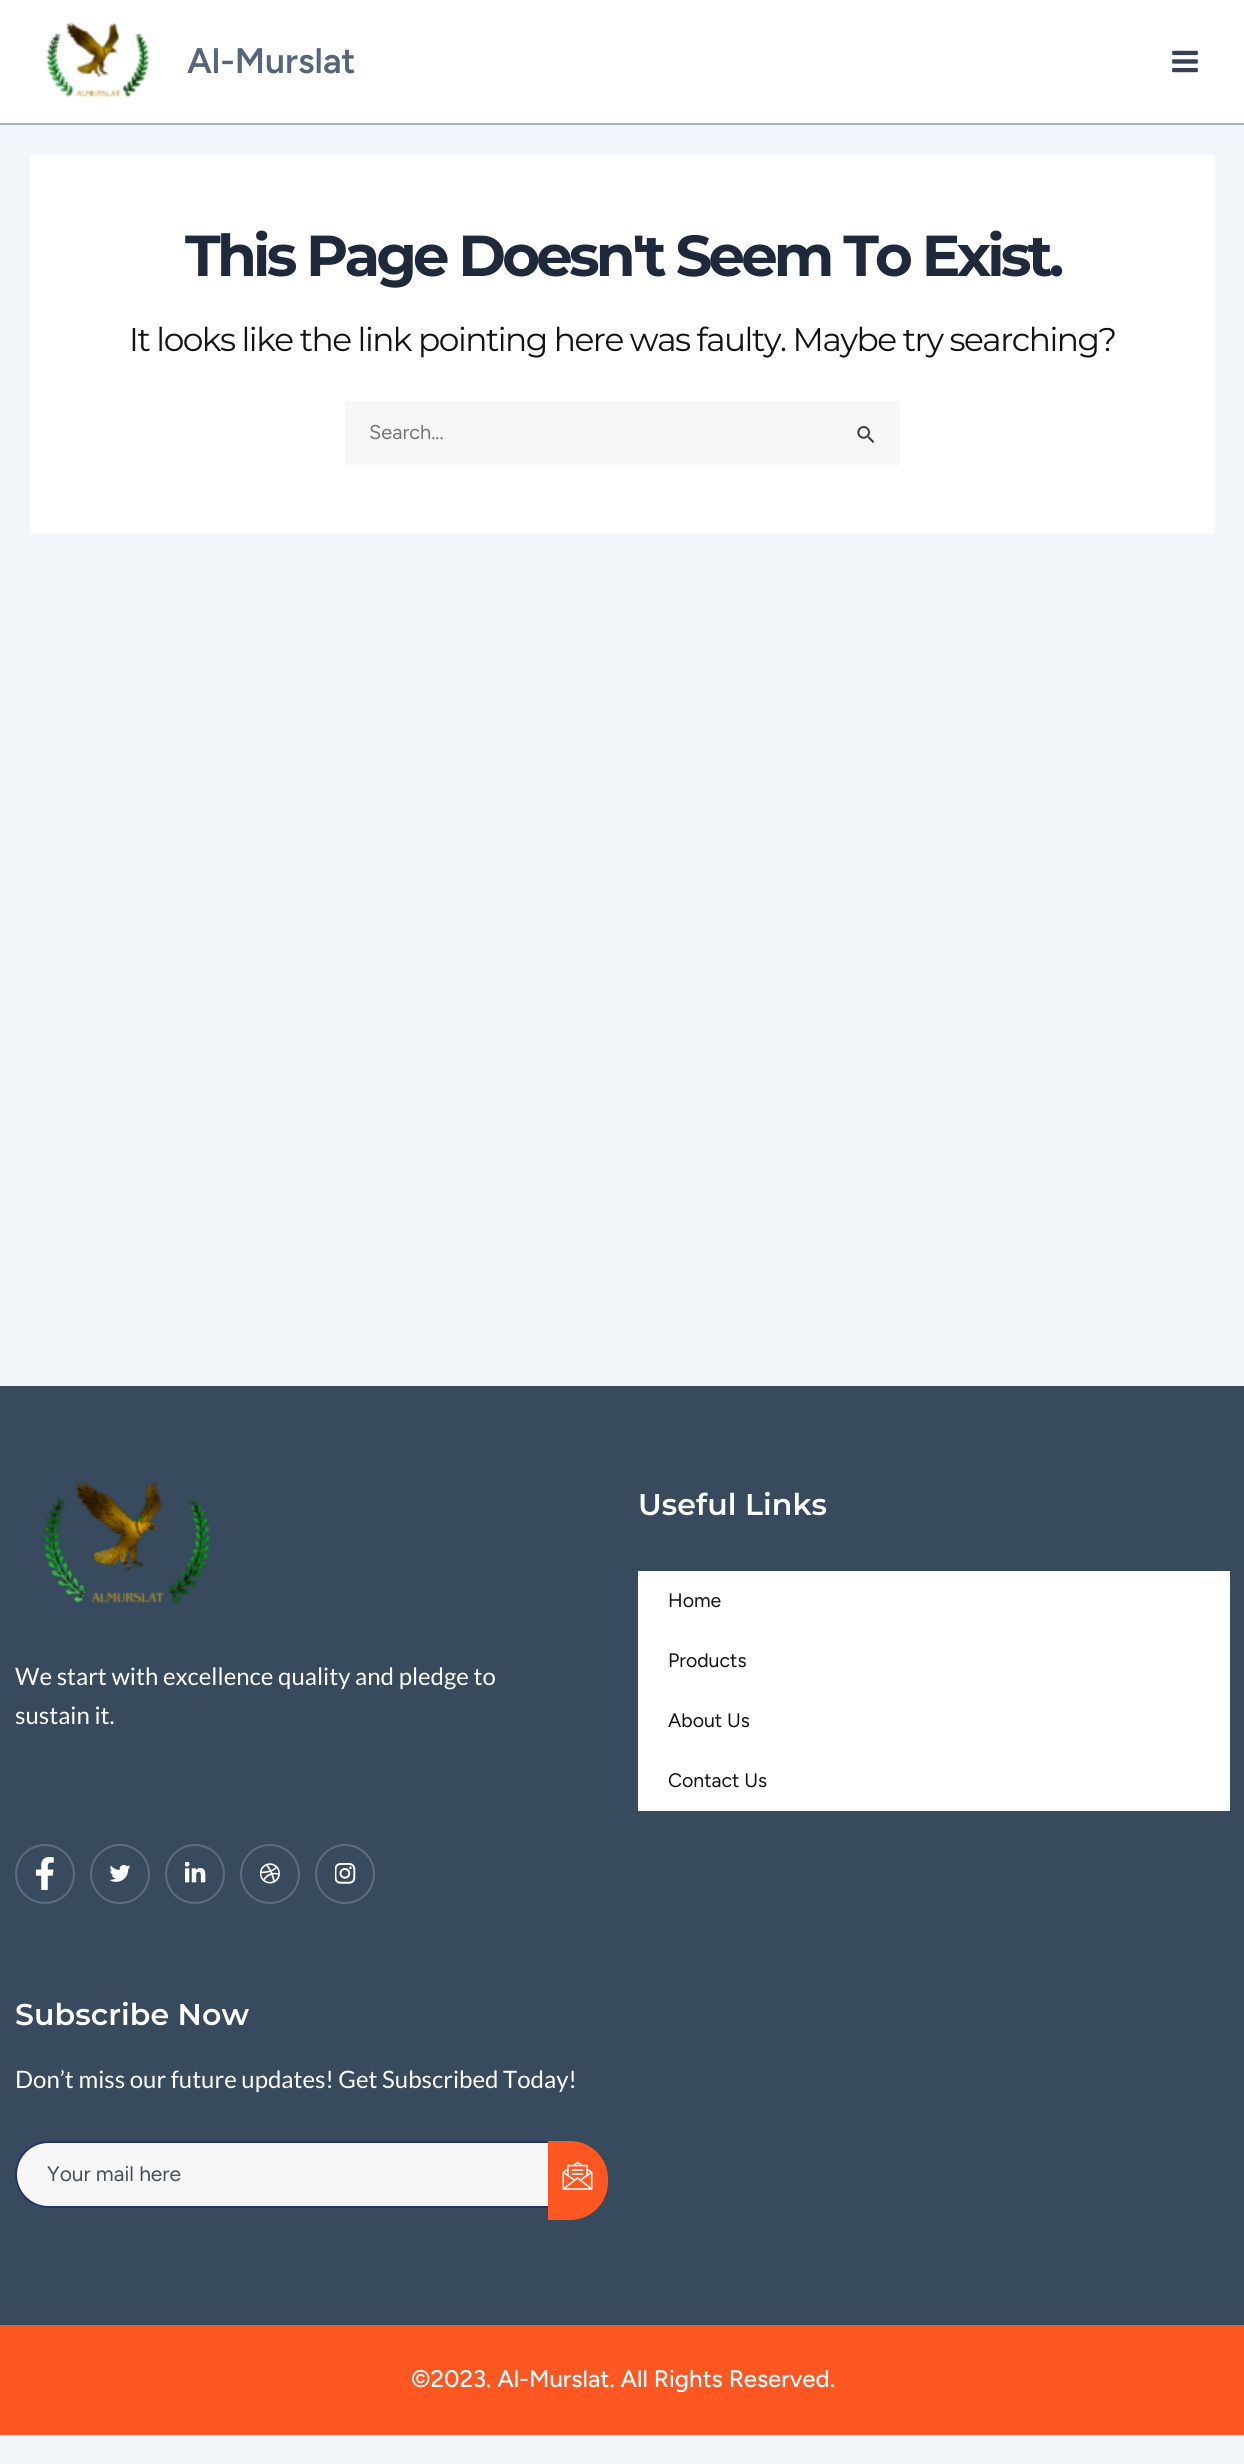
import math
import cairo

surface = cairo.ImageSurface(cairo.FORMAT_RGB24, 1244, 2464)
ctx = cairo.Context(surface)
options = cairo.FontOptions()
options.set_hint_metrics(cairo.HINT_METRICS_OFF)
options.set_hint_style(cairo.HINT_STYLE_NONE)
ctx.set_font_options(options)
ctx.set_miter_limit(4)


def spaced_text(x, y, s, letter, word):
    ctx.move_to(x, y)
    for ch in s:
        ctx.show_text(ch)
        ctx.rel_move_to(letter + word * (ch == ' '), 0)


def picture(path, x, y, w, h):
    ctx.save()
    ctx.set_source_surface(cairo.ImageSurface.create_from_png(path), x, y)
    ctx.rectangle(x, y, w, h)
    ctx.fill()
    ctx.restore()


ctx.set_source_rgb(0.941, 0.961, 0.98)
ctx.paint()
ctx.set_source_rgb(1, 1, 1)
ctx.rectangle(0, 0, 1244, 123)
ctx.fill()
ctx.set_source_rgb(0.678, 0.714, 0.745)
ctx.rectangle(0, 123, 1244, 2)
ctx.fill()
picture("img1.png", 46, 22, 103, 76)
ctx.select_font_face("Figtree SemiBold")
ctx.set_font_size(35.5)
ctx.set_source_rgb(0.329, 0.396, 0.49)
ctx.move_to(187, 73)
ctx.show_text("Al-Murslat")
picture("img2.png", 1172, 50, 26, 23)
ctx.set_source_rgb(1, 1, 1)
ctx.rectangle(30, 155, 1185, 379)
ctx.fill()
ctx.select_font_face("Montserrat", cairo.FONT_SLANT_NORMAL, cairo.FONT_WEIGHT_BOLD)
ctx.set_font_size(57.7)
ctx.set_source_rgb(0.118, 0.161, 0.231)
spaced_text(185, 276, "This Page Doesn't Seem To Exist.", -3.75, 0)
ctx.select_font_face("Montserrat")
ctx.set_font_size(32.8)
ctx.set_source_rgb(0.067, 0.071, 0.075)
spaced_text(129, 351, "It looks like the link pointing here was faulty. Maybe try searching?", -1.5, 0)
ctx.set_source_rgb(0.965, 0.965, 0.965)
ctx.rectangle(345, 401, 555, 64)
ctx.fill()
ctx.select_font_face("Figtree")
ctx.set_font_size(20)
ctx.set_source_rgb(0.459, 0.459, 0.459)
ctx.move_to(369, 439)
ctx.show_text("Search...")
picture("img3.png", 857, 426, 18, 17)
ctx.set_source_rgb(0.216, 0.29, 0.369)
ctx.rectangle(0, 1386, 1244, 939)
ctx.fill()
picture("img4.png", 43, 1480, 168, 123)
ctx.select_font_face("Lato")
ctx.set_font_size(24)
ctx.set_source_rgb(1, 1, 1)
ctx.move_to(15, 1685)
ctx.show_text("We start with excellence quality and pledge to")
ctx.move_to(15, 1724)
ctx.show_text("sustain it.")
ctx.new_path()
ctx.arc(45, 1874, 29, 0, 2 * math.pi)
ctx.set_source_rgb(0.369, 0.427, 0.494)
ctx.stroke()
picture("img5.png", 35, 1857, 19, 33)
ctx.arc(120, 1874, 29, 0, 2 * math.pi)
ctx.stroke()
picture("img6.png", 110, 1864, 21, 18)
ctx.arc(195, 1874, 29, 0, 2 * math.pi)
ctx.stroke()
picture("img7.png", 185, 1862, 21, 21)
ctx.arc(270, 1874, 29, 0, 2 * math.pi)
ctx.stroke()
picture("img8.png", 260, 1863, 20, 21)
ctx.arc(345, 1874, 29, 0, 2 * math.pi)
ctx.stroke()
picture("img9.png", 335, 1863, 21, 21)
ctx.select_font_face("Montserrat SemiBold")
ctx.set_font_size(30)
ctx.set_source_rgb(1, 1, 1)
spaced_text(638, 1515, "Useful Links", 0.1, 0)
ctx.rectangle(638, 1571, 592, 240)
ctx.fill()
ctx.select_font_face("Figtree")
ctx.set_font_size(19.5)
ctx.set_source_rgb(0.067, 0.071, 0.075)
ctx.move_to(668, 1607)
ctx.show_text("Home")
ctx.move_to(668, 1667)
ctx.show_text("Products")
ctx.move_to(668, 1727)
ctx.show_text("About Us")
ctx.move_to(668, 1787)
ctx.show_text("Contact Us")
ctx.select_font_face("Montserrat SemiBold")
ctx.set_font_size(30)
ctx.set_source_rgb(1, 1, 1)
spaced_text(15, 2025, "Subscribe Now", 0.1, 0)
ctx.select_font_face("Lato")
ctx.set_font_size(24)
ctx.move_to(15, 2088)
ctx.show_text("Don’t miss our future updates! Get Subscribed Today!")
ctx.set_source_rgb(0.965, 0.965, 0.965)
ctx.new_path()
ctx.move_to(48.5, 2142)
ctx.line_to(550, 2142)
ctx.line_to(550, 2207)
ctx.line_to(48.5, 2207)
ctx.curve_to(30.5, 2207, 16, 2192.5, 16, 2174.5)
ctx.curve_to(16, 2156.5, 30.5, 2142, 48.5, 2142)
ctx.close_path()
ctx.fill_preserve()
ctx.set_source_rgb(0.153, 0.192, 0.443)
ctx.stroke()
ctx.select_font_face("Figtree")
ctx.set_font_size(21)
ctx.set_source_rgb(0.286, 0.314, 0.341)
ctx.move_to(47, 2181)
ctx.show_text("Your mail here")
ctx.set_source_rgb(1, 0.341, 0.133)
ctx.new_path()
ctx.move_to(548, 2141)
ctx.line_to(570, 2141)
ctx.curve_to(591, 2141, 608, 2158, 608, 2179)
ctx.line_to(608, 2182)
ctx.curve_to(608, 2203, 591, 2220, 570, 2220)
ctx.line_to(548, 2220)
ctx.close_path()
ctx.fill()
picture("img10.png", 562, 2161, 31, 29)
ctx.rectangle(0, 2325, 1244, 110)
ctx.fill()
ctx.select_font_face("Figtree Medium")
ctx.set_font_size(24)
ctx.set_source_rgb(1, 1, 1)
ctx.move_to(411, 2387)
ctx.show_text("©2023. Al-Murslat. All Rights Reserved.")
surface.write_to_png("page.png")
